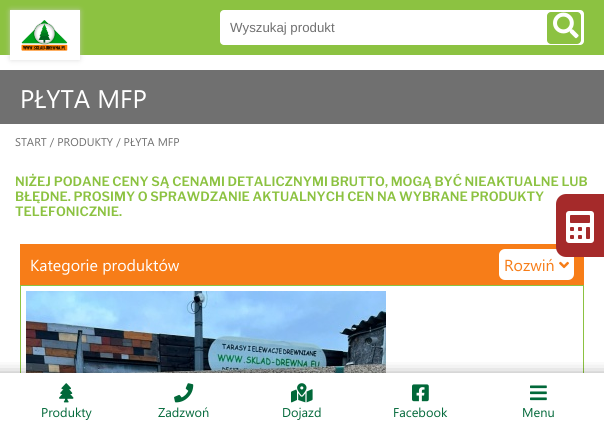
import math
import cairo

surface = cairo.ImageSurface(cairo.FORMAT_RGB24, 604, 430)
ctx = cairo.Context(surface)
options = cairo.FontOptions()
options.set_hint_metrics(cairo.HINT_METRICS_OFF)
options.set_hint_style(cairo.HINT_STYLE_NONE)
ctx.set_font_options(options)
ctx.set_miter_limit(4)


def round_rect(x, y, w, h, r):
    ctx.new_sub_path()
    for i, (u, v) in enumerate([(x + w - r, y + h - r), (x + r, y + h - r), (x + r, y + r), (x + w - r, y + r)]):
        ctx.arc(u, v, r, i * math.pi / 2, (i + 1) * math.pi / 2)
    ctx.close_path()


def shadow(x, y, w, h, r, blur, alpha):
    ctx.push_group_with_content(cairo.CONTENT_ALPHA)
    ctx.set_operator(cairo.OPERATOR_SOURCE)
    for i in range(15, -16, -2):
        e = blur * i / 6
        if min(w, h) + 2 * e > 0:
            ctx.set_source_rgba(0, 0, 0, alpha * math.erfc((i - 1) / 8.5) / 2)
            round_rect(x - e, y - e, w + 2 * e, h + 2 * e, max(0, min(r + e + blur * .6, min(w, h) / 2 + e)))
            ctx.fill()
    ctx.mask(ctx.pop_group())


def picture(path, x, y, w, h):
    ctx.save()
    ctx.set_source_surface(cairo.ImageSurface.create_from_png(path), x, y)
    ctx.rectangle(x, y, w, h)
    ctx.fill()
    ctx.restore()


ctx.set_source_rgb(1, 1, 1)
ctx.paint()
ctx.set_source_rgb(0.549, 0.761, 0.255)
ctx.rectangle(0, 0, 604, 55)
ctx.fill()
ctx.set_source_rgb(0.808, 0.808, 0.808)
shadow(11, 11, 68, 48, 0, 3, 1)
ctx.set_source_rgb(1, 1, 1)
ctx.rectangle(10, 10, 70, 50)
ctx.fill()
picture("img1.png", 21, 20, 47, 31)
round_rect(220, 10, 364, 35, 4)
ctx.fill()
ctx.select_font_face("Liberation Sans")
ctx.set_font_size(13.25)
ctx.set_source_rgb(0.439, 0.439, 0.439)
ctx.move_to(230, 32)
ctx.show_text("Wyszukaj produkt")
ctx.set_source_rgb(0.549, 0.761, 0.255)
round_rect(547, 12, 34, 32, 4)
ctx.fill()
picture("img2.png", 553, 12, 26, 27)
ctx.set_source_rgb(0.439, 0.439, 0.439)
ctx.rectangle(0, 70, 604, 54)
ctx.fill()
ctx.select_font_face("Segoe UI")
ctx.set_font_size(25.5)
ctx.set_source_rgb(1, 1, 1)
ctx.move_to(20, 108)
ctx.show_text("PŁYTA MFP")
ctx.set_font_size(11.25)
ctx.set_source_rgb(0.439, 0.439, 0.439)
ctx.move_to(15, 146)
ctx.show_text("START / PRODUKTY / PŁYTA MFP")
ctx.select_font_face("Libre Franklin Thin")
ctx.set_font_size(12.8)
ctx.set_source_rgb(0.549, 0.761, 0.255)
ctx.move_to(15, 186)
ctx.show_text("NIŻEJ PODANE CENY SĄ CENAMI DETALICZNYMI BRUTTO, MOGĄ BYĆ NIEAKTUALNE LUB")
ctx.move_to(15, 201)
ctx.show_text("BŁĘDNE. PROSIMY O SPRAWDZANIE AKTUALNYCH CEN NA WYBRANE PRODUKTY")
ctx.move_to(15, 216)
ctx.show_text("TELEFONICZNIE.")
ctx.set_source_rgb(0.965, 0.49, 0.094)
ctx.rectangle(20, 244, 564, 41)
ctx.fill()
ctx.select_font_face("Segoe UI")
ctx.set_font_size(16)
ctx.set_source_rgb(1, 1, 1)
ctx.move_to(30, 271)
ctx.show_text("Kategorie produktów")
round_rect(499, 249, 75, 31, 6)
ctx.fill()
ctx.set_source_rgb(0.965, 0.49, 0.094)
ctx.move_to(504, 271)
ctx.show_text("Rozwiń")
picture("img3.png", 559, 261, 10, 8)
ctx.rectangle(20.5, 285.5, 563, 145)
ctx.set_source_rgb(0.549, 0.761, 0.255)
ctx.set_line_width(1)
ctx.stroke()
picture("img4.png", 26, 291, 360, 82)
ctx.set_source_rgb(0.647, 0.165, 0.165)
ctx.new_path()
ctx.move_to(566, 194)
ctx.line_to(604, 194)
ctx.line_to(604, 257)
ctx.line_to(566, 257)
ctx.curve_to(560.5, 257, 556, 252.5, 556, 247)
ctx.line_to(556, 204)
ctx.curve_to(556, 198.5, 560.5, 194, 566, 194)
ctx.close_path()
ctx.fill()
picture("img5.png", 566, 211, 28, 32)
ctx.set_source_rgb(1, 1, 1)
ctx.rectangle(20, 373, 564, 57)
ctx.fill()
ctx.save()
ctx.rectangle(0, 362, 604, 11)
ctx.clip()
ctx.set_source_rgb(0, 0, 0)
shadow(-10, 383, 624, 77, 0, 10, 1)
ctx.restore()
picture("img6.png", 59, 383, 15, 20)
ctx.set_font_size(12.8)
ctx.set_source_rgb(0.004, 0.408, 0.224)
ctx.move_to(41, 417)
ctx.show_text("Produkty")
picture("img7.png", 174, 383, 20, 20)
ctx.move_to(158, 417)
ctx.show_text("Zadzwoń")
picture("img8.png", 291, 383, 22, 20)
ctx.move_to(282, 417)
ctx.show_text("Dojazd")
picture("img9.png", 412, 384, 17, 18)
ctx.move_to(393, 417)
ctx.show_text("Facebook")
picture("img10.png", 530, 385, 17, 16)
ctx.move_to(522, 417)
ctx.show_text("Menu")
surface.write_to_png("page.png")
